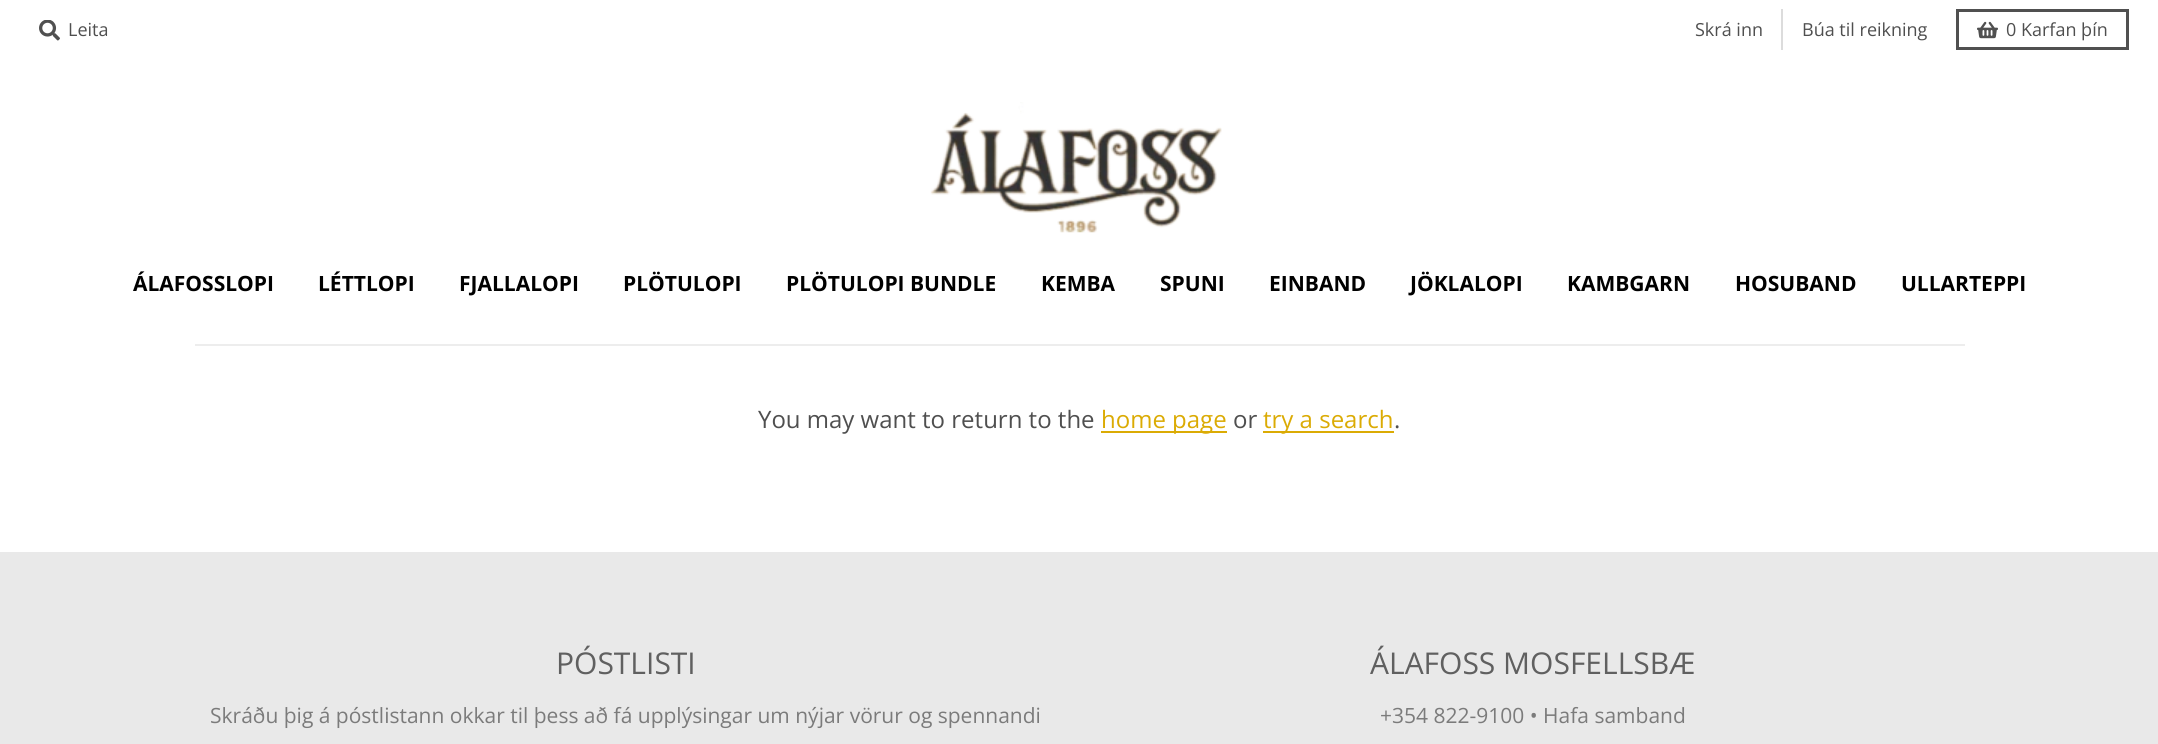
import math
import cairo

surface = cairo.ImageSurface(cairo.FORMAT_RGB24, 2158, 744)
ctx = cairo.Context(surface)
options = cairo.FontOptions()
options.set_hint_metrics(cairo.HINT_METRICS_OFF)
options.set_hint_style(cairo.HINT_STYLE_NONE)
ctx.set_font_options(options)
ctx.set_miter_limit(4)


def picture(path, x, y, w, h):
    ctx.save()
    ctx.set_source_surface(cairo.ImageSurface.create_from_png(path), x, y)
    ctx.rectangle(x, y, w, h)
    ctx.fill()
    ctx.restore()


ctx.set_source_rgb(1, 1, 1)
ctx.paint()
picture("img1.png", 39, 20, 21, 21)
ctx.select_font_face("Open Sans")
ctx.set_font_size(18)
ctx.set_source_rgb(0.31, 0.31, 0.31)
ctx.move_to(68, 36)
ctx.show_text("Leita")
ctx.set_source_rgb(0.863, 0.863, 0.863)
ctx.rectangle(1781, 9, 2, 41)
ctx.fill()
ctx.set_source_rgb(0.31, 0.31, 0.31)
ctx.move_to(1695, 36)
ctx.show_text("Skrá inn")
ctx.move_to(1802, 36)
ctx.show_text("Búa til reikning")
ctx.rectangle(1957.5, 10.5, 170, 38)
ctx.set_source_rgb(0.314, 0.314, 0.314)
ctx.set_line_width(3)
ctx.stroke()
picture("img2.png", 1977, 21, 21, 18)
ctx.set_source_rgb(0.31, 0.31, 0.31)
ctx.move_to(2006, 36)
ctx.show_text("0 Karfan þín")
picture("img3.png", 930, 102, 292, 131)
ctx.select_font_face("Open Sans", cairo.FONT_SLANT_NORMAL, cairo.FONT_WEIGHT_BOLD)
ctx.set_font_size(21)
ctx.set_source_rgb(0, 0, 0)
ctx.move_to(133, 291)
ctx.show_text("ÁLAFOSSLOPI")
ctx.move_to(318, 291)
ctx.show_text("LÉTTLOPI")
ctx.move_to(459, 291)
ctx.show_text("FJALLALOPI")
ctx.move_to(623, 291)
ctx.show_text("PLÖTULOPI")
ctx.move_to(786, 291)
ctx.show_text("PLÖTULOPI BUNDLE")
ctx.move_to(1041, 291)
ctx.show_text("KEMBA")
ctx.move_to(1160, 291)
ctx.show_text("SPUNI")
ctx.move_to(1269, 291)
ctx.show_text("EINBAND")
ctx.move_to(1410, 291)
ctx.show_text("JÖKLALOPI")
ctx.move_to(1567, 291)
ctx.show_text("KAMBGARN")
ctx.move_to(1735, 291)
ctx.show_text("HOSUBAND")
ctx.move_to(1901, 291)
ctx.show_text("ULLARTEPPI")
ctx.set_source_rgb(0.929, 0.929, 0.929)
ctx.rectangle(195, 344, 1770, 2)
ctx.fill()
ctx.select_font_face("Open Sans")
ctx.set_font_size(24)
ctx.set_source_rgb(0.31, 0.31, 0.31)
ctx.move_to(758, 428)
ctx.show_text("You may want to return to the")
ctx.set_source_rgb(0.859, 0.671, 0.016)
ctx.rectangle(1101, 431, 126, 2)
ctx.fill()
ctx.move_to(1101, 428)
ctx.show_text("home page")
ctx.set_source_rgb(0.31, 0.31, 0.31)
ctx.move_to(1233, 428)
ctx.show_text("or")
ctx.set_source_rgb(0.859, 0.671, 0.016)
ctx.rectangle(1263, 431, 131, 2)
ctx.fill()
ctx.move_to(1263, 428)
ctx.show_text("try a search")
ctx.set_source_rgb(0.31, 0.31, 0.31)
ctx.move_to(1394, 428)
ctx.show_text(".")
ctx.set_source_rgb(0.914, 0.914, 0.914)
ctx.rectangle(0, 552, 2158, 192)
ctx.fill()
ctx.set_font_size(30)
ctx.set_source_rgb(0.376, 0.376, 0.376)
ctx.move_to(556, 674)
ctx.show_text("PÓSTLISTI")
ctx.set_font_size(21)
ctx.set_source_rgb(0.482, 0.482, 0.482)
ctx.move_to(210, 723)
ctx.show_text("Skráðu þig á póstlistann okkar til þess að fá upplýsingar um nýjar vörur og spennandi")
ctx.set_font_size(30)
ctx.set_source_rgb(0.376, 0.376, 0.376)
ctx.move_to(1370, 674)
ctx.show_text("ÁLAFOSS MOSFELLSBÆ")
ctx.set_font_size(21)
ctx.set_source_rgb(0.482, 0.482, 0.482)
ctx.move_to(1380, 723)
ctx.show_text("+354 822-9100 • Hafa samband")
surface.write_to_png("page.png")
